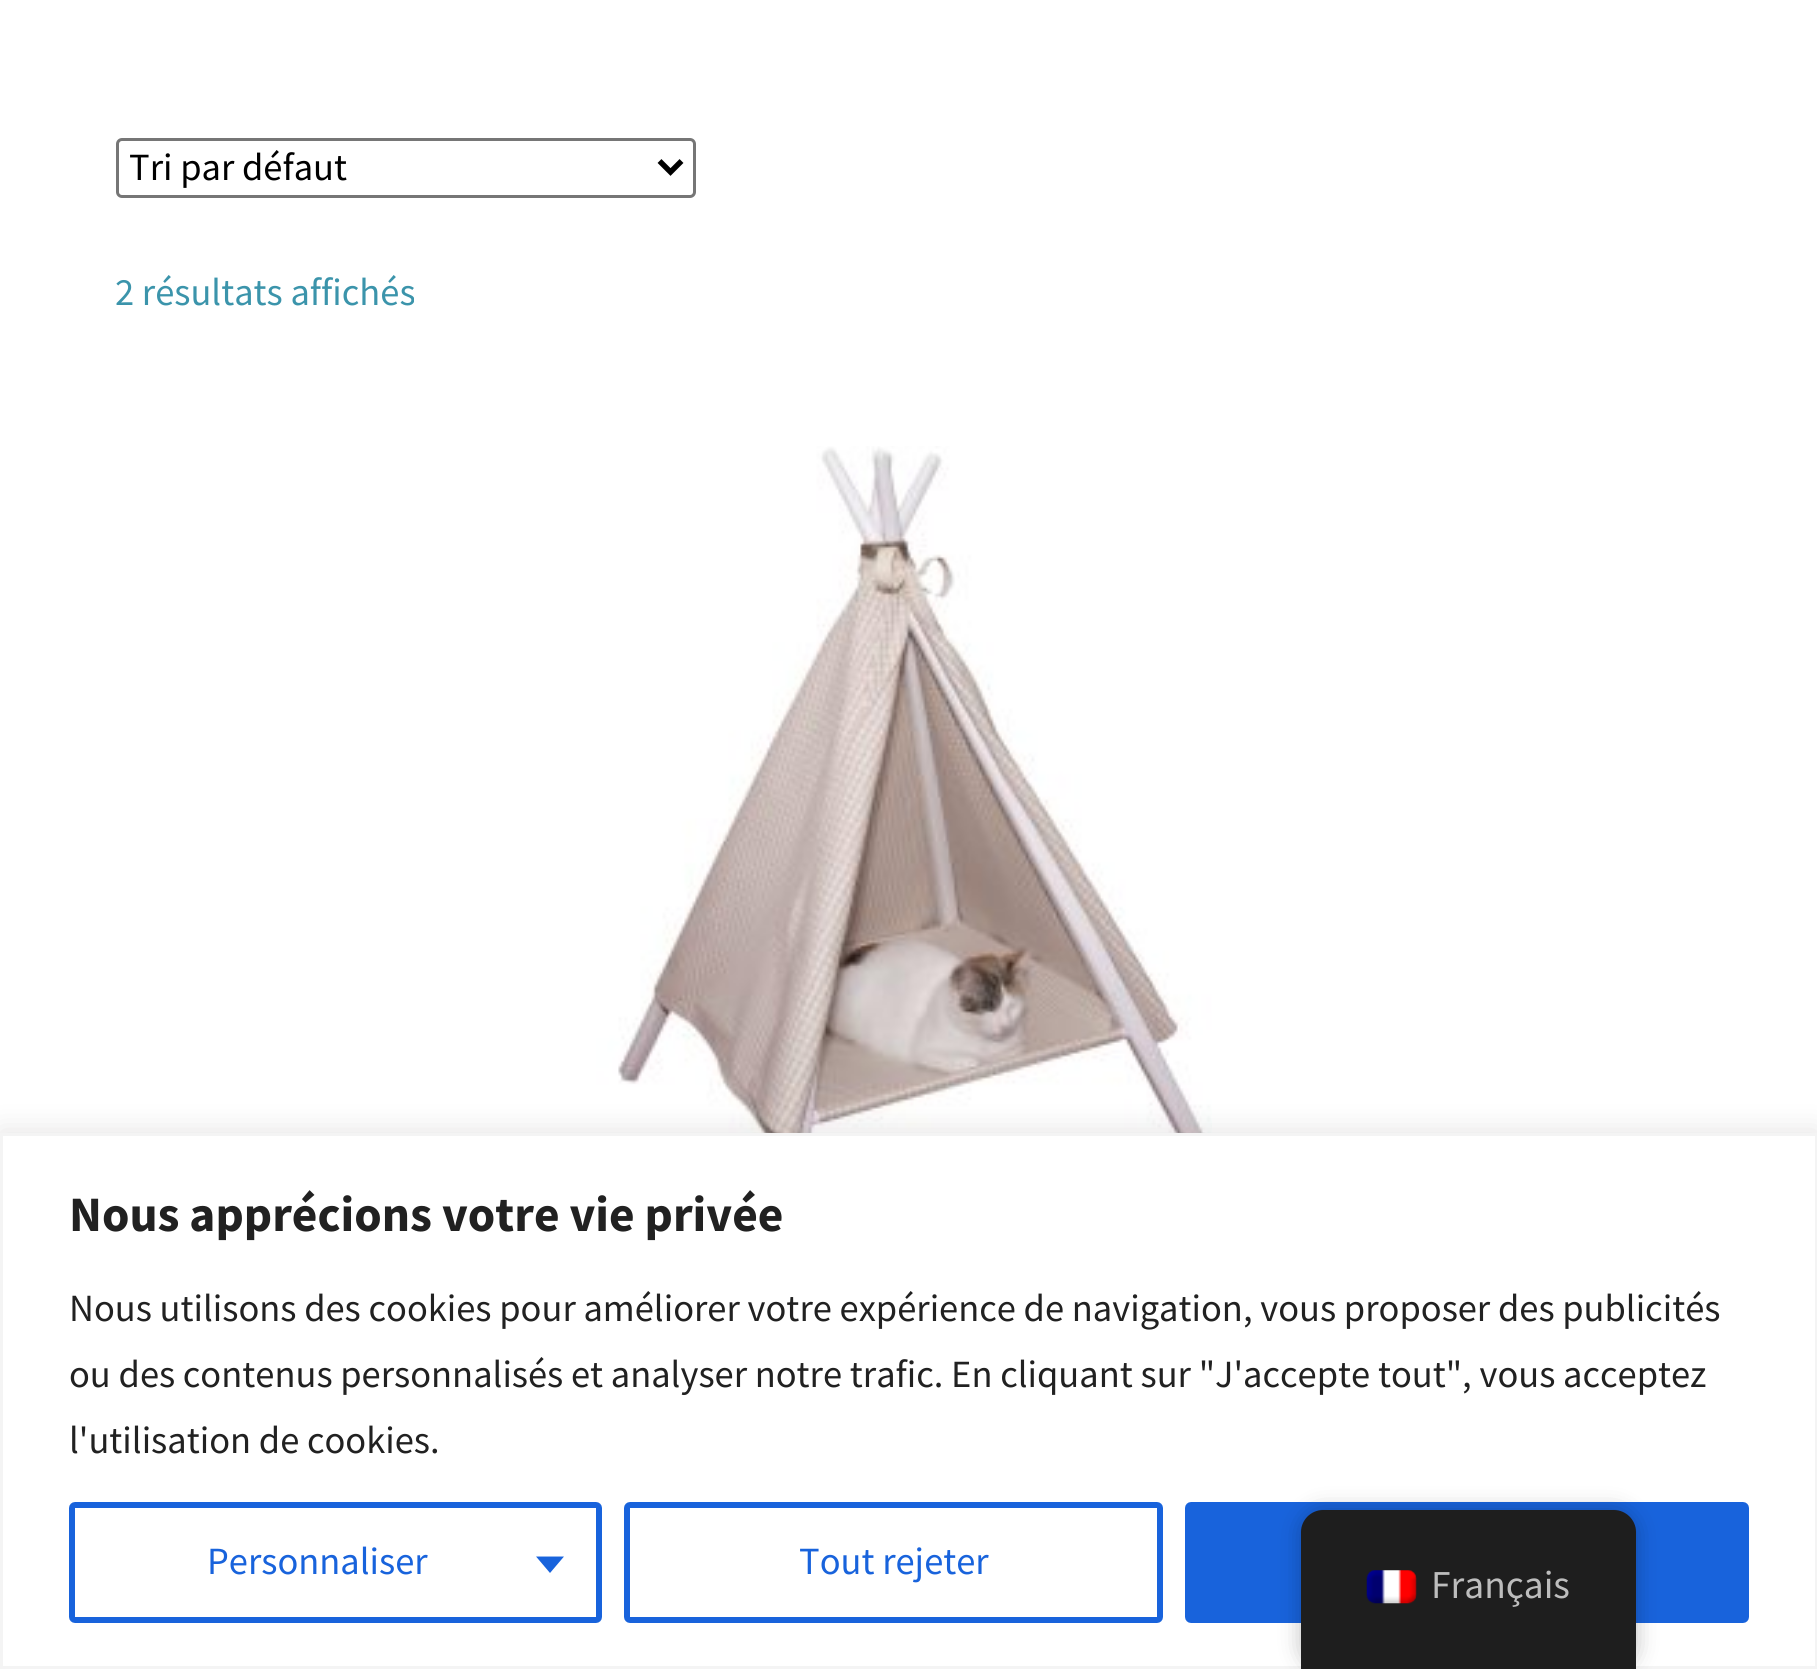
import math
import cairo

surface = cairo.ImageSurface(cairo.FORMAT_RGB24, 1817, 1669)
ctx = cairo.Context(surface)
options = cairo.FontOptions()
options.set_hint_metrics(cairo.HINT_METRICS_OFF)
options.set_hint_style(cairo.HINT_STYLE_NONE)
ctx.set_font_options(options)
ctx.set_miter_limit(4)


def round_rect(x, y, w, h, r):
    ctx.new_sub_path()
    for i, (u, v) in enumerate([(x + w - r, y + h - r), (x + r, y + h - r), (x + r, y + r), (x + w - r, y + r)]):
        ctx.arc(u, v, r, i * math.pi / 2, (i + 1) * math.pi / 2)
    ctx.close_path()


def shadow(x, y, w, h, r, blur, alpha):
    ctx.push_group_with_content(cairo.CONTENT_ALPHA)
    ctx.set_operator(cairo.OPERATOR_SOURCE)
    for i in range(15, -16, -2):
        e = blur * i / 6
        if min(w, h) + 2 * e > 0:
            ctx.set_source_rgba(0, 0, 0, alpha * math.erfc((i - 1) / 8.5) / 2)
            round_rect(x - e, y - e, w + 2 * e, h + 2 * e, max(0, min(r + e + blur * .6, min(w, h) / 2 + e)))
            ctx.fill()
    ctx.mask(ctx.pop_group())


def picture(path, x, y, w, h):
    ctx.save()
    ctx.set_source_surface(cairo.ImageSurface.create_from_png(path), x, y)
    ctx.rectangle(x, y, w, h)
    ctx.fill()
    ctx.restore()


ctx.set_source_rgb(1, 1, 1)
ctx.paint()
round_rect(117.5, 139.5, 577, 57, 4.5)
ctx.set_source_rgb(0.463, 0.463, 0.463)
ctx.set_line_width(3)
ctx.stroke()
ctx.new_path()
ctx.move_to(659.5, 161)
ctx.line_to(670.5, 172)
ctx.line_to(681.5, 161)
ctx.set_source_rgb(0, 0, 0)
ctx.set_line_width(5.5)
ctx.stroke()
ctx.select_font_face("Source Sans Pro")
ctx.set_font_size(38.5)
ctx.move_to(129, 180)
ctx.show_text("Tri par défaut")
ctx.set_source_rgb(0.231, 0.58, 0.671)
ctx.move_to(115, 305)
ctx.show_text("2 résultats affichés")
picture("img1.png", 467, 446, 745, 687)
ctx.set_source_rgb(0.675, 0.671, 0.671)
shadow(0, 1130, 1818, 537, 0, 14, 0.3)
ctx.set_source_rgb(1, 1, 1)
ctx.rectangle(1.5, 1134.5, 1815, 533)
ctx.fill_preserve()
ctx.set_source_rgb(0.957, 0.957, 0.957)
ctx.set_line_width(3)
ctx.stroke()
ctx.select_font_face("Source Sans Pro", cairo.FONT_SLANT_NORMAL, cairo.FONT_WEIGHT_BOLD)
ctx.set_font_size(49.5)
ctx.set_source_rgb(0.129, 0.129, 0.129)
ctx.move_to(69, 1231)
ctx.show_text("Nous apprécions votre vie privée")
ctx.select_font_face("Source Sans Pro")
ctx.set_font_size(38.5)
ctx.move_to(69, 1321)
ctx.show_text("Nous utilisons des cookies pour améliorer votre expérience de navigation, vous proposer des publicités")
ctx.move_to(69, 1387)
ctx.show_text("ou des contenus personnalisés et analyser notre trafic. En cliquant sur \"J'accepte tout\", vous acceptez")
ctx.move_to(69, 1453)
ctx.show_text("l'utilisation de cookies.")
round_rect(72, 1505, 527, 115, 3)
ctx.set_source_rgb(0.094, 0.388, 0.863)
ctx.set_line_width(6)
ctx.stroke()
ctx.move_to(207, 1574)
ctx.show_text("Personnaliser")
ctx.new_path()
ctx.move_to(536, 1556.5)
ctx.line_to(564, 1556.5)
ctx.line_to(550, 1573)
ctx.close_path()
ctx.fill()
round_rect(627, 1505, 533, 115, 3)
ctx.stroke()
ctx.move_to(799, 1574)
ctx.show_text("Tout rejeter")
round_rect(1188, 1505, 558, 115, 3)
ctx.fill_preserve()
ctx.stroke()
ctx.set_source_rgb(0, 0, 0)
shadow(1301, 1510, 335, 159, 22, 11, 0.25)
ctx.set_source_rgb(0.118, 0.118, 0.118)
ctx.new_path()
ctx.move_to(1323, 1510)
ctx.line_to(1614, 1510)
ctx.curve_to(1626, 1510, 1636, 1520, 1636, 1532)
ctx.line_to(1636, 1669)
ctx.line_to(1301, 1669)
ctx.line_to(1301, 1532)
ctx.curve_to(1301, 1520, 1311, 1510, 1323, 1510)
ctx.close_path()
ctx.fill()
picture("img2.png", 1366, 1570, 51, 34)
ctx.set_font_size(39.5)
ctx.set_source_rgb(0.741, 0.741, 0.741)
ctx.move_to(1431, 1598)
ctx.show_text("Français")
surface.write_to_png("page.png")
